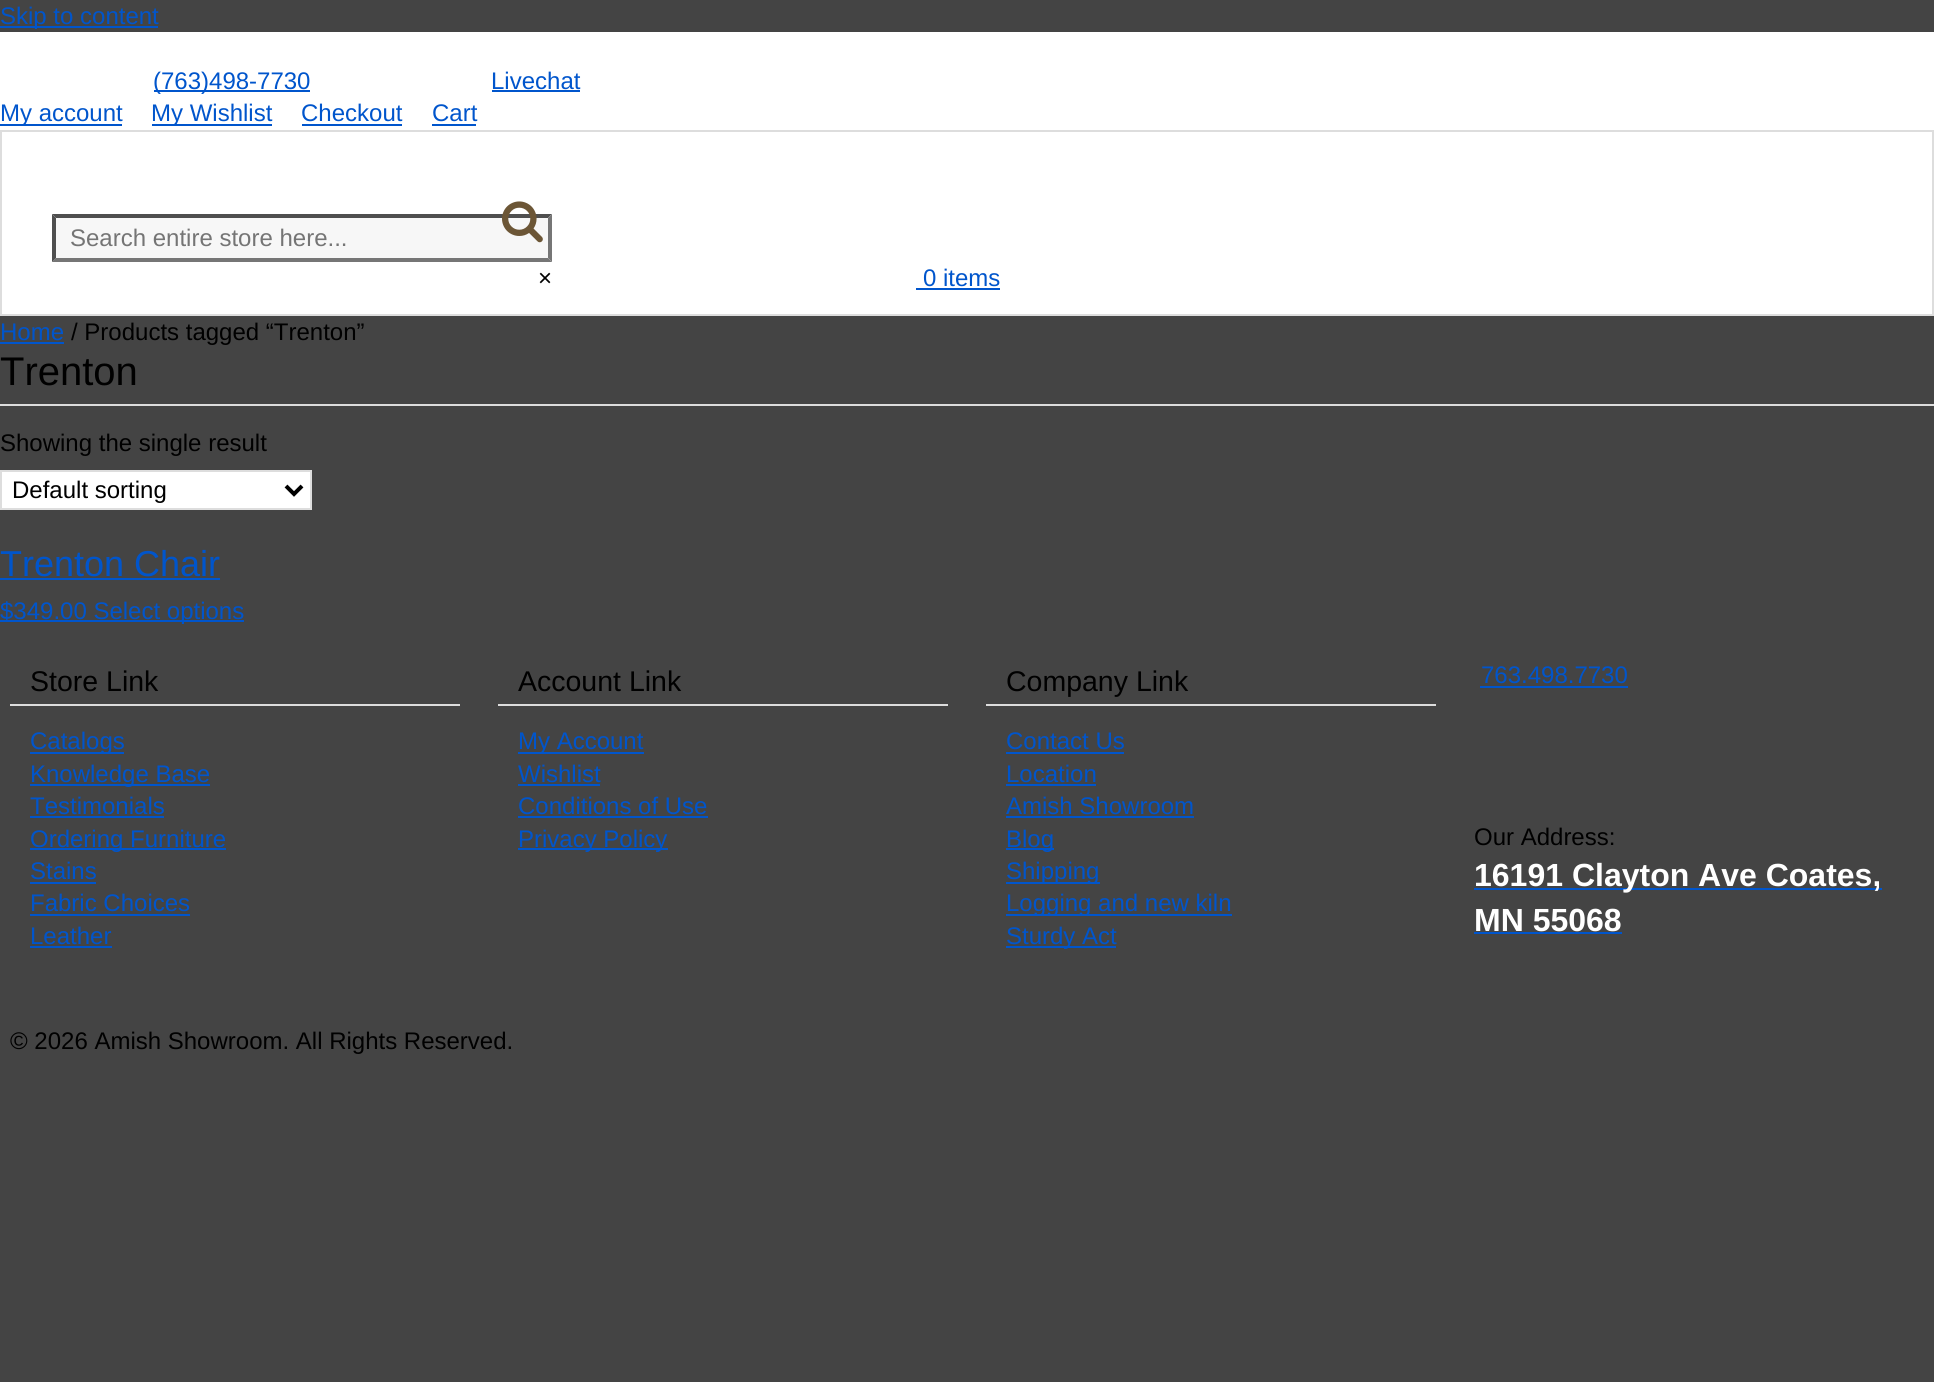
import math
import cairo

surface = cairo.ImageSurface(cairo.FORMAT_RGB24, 1934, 1382)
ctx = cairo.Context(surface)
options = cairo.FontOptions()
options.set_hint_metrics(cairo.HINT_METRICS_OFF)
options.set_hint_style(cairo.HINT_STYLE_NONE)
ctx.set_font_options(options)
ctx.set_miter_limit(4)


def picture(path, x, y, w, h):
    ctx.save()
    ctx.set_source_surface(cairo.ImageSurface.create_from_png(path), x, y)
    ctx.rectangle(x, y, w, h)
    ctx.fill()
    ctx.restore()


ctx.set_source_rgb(0.267, 0.267, 0.267)
ctx.paint()
ctx.set_source_rgb(0, 0.333, 0.8)
ctx.rectangle(0, 26, 158, 2)
ctx.fill()
ctx.select_font_face("Liberation Sans")
ctx.set_font_size(24)
ctx.move_to(0, 24)
ctx.show_text("Skip to content")
ctx.set_source_rgb(1, 1, 1)
ctx.rectangle(0, 32, 1934, 282)
ctx.fill()
ctx.set_source_rgb(0, 0.333, 0.8)
ctx.rectangle(154, 90, 156, 2)
ctx.fill()
ctx.move_to(153, 89)
ctx.show_text("(763)498-7730")
ctx.move_to(491, 89)
ctx.show_text("Livechat")
ctx.rectangle(492, 90, 88, 2)
ctx.fill()
ctx.rectangle(0, 124, 122, 2)
ctx.fill()
ctx.move_to(0, 121)
ctx.show_text("My account")
ctx.rectangle(152, 124, 120, 2)
ctx.fill()
ctx.move_to(151, 121)
ctx.show_text("My Wishlist")
ctx.move_to(301, 121)
ctx.show_text("Checkout")
ctx.rectangle(302, 124, 100, 2)
ctx.fill()
ctx.move_to(432, 121)
ctx.show_text("Cart")
ctx.rectangle(432, 124, 44, 2)
ctx.fill()
ctx.rectangle(1, 131, 1932, 184)
ctx.set_source_rgb(0.867, 0.867, 0.867)
ctx.stroke()
ctx.set_source_rgb(0.965, 0.965, 0.965)
ctx.rectangle(52, 214, 500, 48)
ctx.fill()
ctx.set_source_rgb(0.31, 0.31, 0.31)
ctx.new_path()
ctx.move_to(52, 214)
ctx.line_to(552, 214)
ctx.line_to(548, 218)
ctx.line_to(56, 218)
ctx.close_path()
ctx.fill()
picture("img1.png", 502, 201, 41, 42)
ctx.set_source_rgb(0.463, 0.463, 0.463)
ctx.new_path()
ctx.move_to(552, 214)
ctx.line_to(552, 262)
ctx.line_to(548, 258)
ctx.line_to(548, 218)
ctx.close_path()
ctx.fill()
ctx.new_path()
ctx.move_to(552, 262)
ctx.line_to(52, 262)
ctx.line_to(56, 258)
ctx.line_to(548, 258)
ctx.close_path()
ctx.fill()
ctx.set_source_rgb(0.31, 0.31, 0.31)
ctx.new_path()
ctx.move_to(52, 262)
ctx.line_to(52, 214)
ctx.line_to(56, 218)
ctx.line_to(56, 258)
ctx.close_path()
ctx.fill()
ctx.set_source_rgb(0.459, 0.459, 0.459)
ctx.move_to(70, 246)
ctx.show_text("Search entire store here...")
ctx.set_source_rgb(0, 0, 0)
ctx.move_to(538, 286)
ctx.show_text("×")
ctx.set_source_rgb(0, 0.333, 0.8)
ctx.move_to(923, 286)
ctx.show_text("0 items")
ctx.rectangle(916, 288, 84, 2)
ctx.fill()
ctx.move_to(0, 340)
ctx.show_text("Home")
ctx.rectangle(0, 342, 64, 2)
ctx.fill()
ctx.set_source_rgb(0, 0, 0)
ctx.move_to(71, 340)
ctx.show_text("/ Products tagged “Trenton”")
ctx.set_source_rgb(0.867, 0.867, 0.867)
ctx.rectangle(0, 404, 1934, 2)
ctx.fill()
ctx.set_font_size(40)
ctx.set_source_rgb(0, 0, 0)
ctx.move_to(0, 385)
ctx.show_text("Trenton")
ctx.set_font_size(24)
ctx.move_to(0, 451)
ctx.show_text("Showing the single result")
ctx.set_source_rgb(1, 1, 1)
ctx.rectangle(1, 471, 310, 38)
ctx.fill_preserve()
ctx.set_source_rgb(0.867, 0.867, 0.867)
ctx.stroke()
ctx.new_path()
ctx.move_to(286, 486)
ctx.line_to(294, 494)
ctx.line_to(302, 486)
ctx.set_source_rgb(0, 0, 0)
ctx.set_line_width(4)
ctx.stroke()
ctx.move_to(12, 498)
ctx.show_text("Default sorting")
ctx.set_font_size(36)
ctx.set_source_rgb(0, 0.333, 0.8)
ctx.move_to(0, 576)
ctx.show_text("Trenton Chair")
ctx.rectangle(0, 578, 220, 2)
ctx.fill()
ctx.rectangle(0, 620, 244, 2)
ctx.fill()
ctx.set_font_size(24)
ctx.move_to(0, 619)
ctx.show_text("$349.00 Select options")
ctx.set_source_rgb(0.867, 0.867, 0.867)
ctx.rectangle(10, 704, 450, 2)
ctx.fill()
ctx.set_font_size(28.5)
ctx.set_source_rgb(0, 0, 0)
ctx.move_to(30, 691)
ctx.show_text("Store Link")
ctx.set_source_rgb(0, 0.333, 0.8)
ctx.rectangle(30, 752, 94, 2)
ctx.fill()
ctx.set_font_size(24)
ctx.move_to(30, 749)
ctx.show_text("Catalogs")
ctx.rectangle(30, 784, 180, 2)
ctx.fill()
ctx.move_to(30, 782)
ctx.show_text("Knowledge Base")
ctx.move_to(30, 814)
ctx.show_text("Testimonials")
ctx.rectangle(30, 816, 134, 2)
ctx.fill()
ctx.rectangle(30, 848, 196, 2)
ctx.fill()
ctx.move_to(30, 847)
ctx.show_text("Ordering Furniture")
ctx.move_to(30, 879)
ctx.show_text("Stains")
ctx.rectangle(30, 882, 66, 2)
ctx.fill()
ctx.move_to(30, 911)
ctx.show_text("Fabric Choices")
ctx.rectangle(30, 914, 160, 2)
ctx.fill()
ctx.move_to(30, 944)
ctx.show_text("Leather")
ctx.rectangle(30, 946, 82, 2)
ctx.fill()
ctx.set_source_rgb(0.867, 0.867, 0.867)
ctx.rectangle(498, 704, 450, 2)
ctx.fill()
ctx.set_font_size(28.5)
ctx.set_source_rgb(0, 0, 0)
ctx.move_to(518, 691)
ctx.show_text("Account Link")
ctx.set_source_rgb(0, 0.333, 0.8)
ctx.rectangle(518, 752, 126, 2)
ctx.fill()
ctx.set_font_size(24)
ctx.move_to(518, 749)
ctx.show_text("My Account")
ctx.move_to(518, 782)
ctx.show_text("Wishlist")
ctx.rectangle(518, 784, 82, 2)
ctx.fill()
ctx.move_to(518, 814)
ctx.show_text("Conditions of Use")
ctx.rectangle(518, 816, 190, 2)
ctx.fill()
ctx.rectangle(518, 848, 150, 2)
ctx.fill()
ctx.move_to(518, 847)
ctx.show_text("Privacy Policy")
ctx.set_source_rgb(0.867, 0.867, 0.867)
ctx.rectangle(986, 704, 450, 2)
ctx.fill()
ctx.set_font_size(28.5)
ctx.set_source_rgb(0, 0, 0)
ctx.move_to(1006, 691)
ctx.show_text("Company Link")
ctx.set_font_size(24)
ctx.set_source_rgb(0, 0.333, 0.8)
ctx.move_to(1006, 749)
ctx.show_text("Contact Us")
ctx.rectangle(1006, 752, 118, 2)
ctx.fill()
ctx.move_to(1006, 782)
ctx.show_text("Location")
ctx.rectangle(1006, 784, 90, 2)
ctx.fill()
ctx.move_to(1006, 814)
ctx.show_text("Amish Showroom")
ctx.rectangle(1006, 816, 188, 2)
ctx.fill()
ctx.rectangle(1006, 848, 48, 2)
ctx.fill()
ctx.move_to(1006, 847)
ctx.show_text("Blog")
ctx.rectangle(1006, 882, 94, 2)
ctx.fill()
ctx.move_to(1006, 879)
ctx.show_text("Shipping")
ctx.rectangle(1006, 914, 226, 2)
ctx.fill()
ctx.move_to(1006, 911)
ctx.show_text("Logging and new kiln")
ctx.rectangle(1006, 946, 110, 2)
ctx.fill()
ctx.move_to(1006, 944)
ctx.show_text("Sturdy Act")
ctx.move_to(1481, 683)
ctx.show_text("763.498.7730")
ctx.rectangle(1480, 686, 148, 2)
ctx.fill()
ctx.set_source_rgb(0, 0, 0)
ctx.move_to(1474, 845)
ctx.show_text("Our Address:")
ctx.set_source_rgb(0, 0.333, 0.8)
ctx.rectangle(1474, 888, 408, 2)
ctx.fill()
ctx.select_font_face("Liberation Sans", cairo.FONT_SLANT_NORMAL, cairo.FONT_WEIGHT_BOLD)
ctx.set_font_size(32)
ctx.set_source_rgb(1, 1, 1)
ctx.move_to(1474, 886)
ctx.show_text("16191 Clayton Ave Coates,")
ctx.move_to(1474, 931)
ctx.show_text("MN 55068")
ctx.set_source_rgb(0, 0.333, 0.8)
ctx.rectangle(1474, 932, 148, 2)
ctx.fill()
ctx.select_font_face("Liberation Sans")
ctx.set_font_size(24)
ctx.set_source_rgb(0, 0, 0)
ctx.move_to(10, 1049)
ctx.show_text("© 2026 Amish Showroom. All Rights Reserved.")
surface.write_to_png("page.png")
